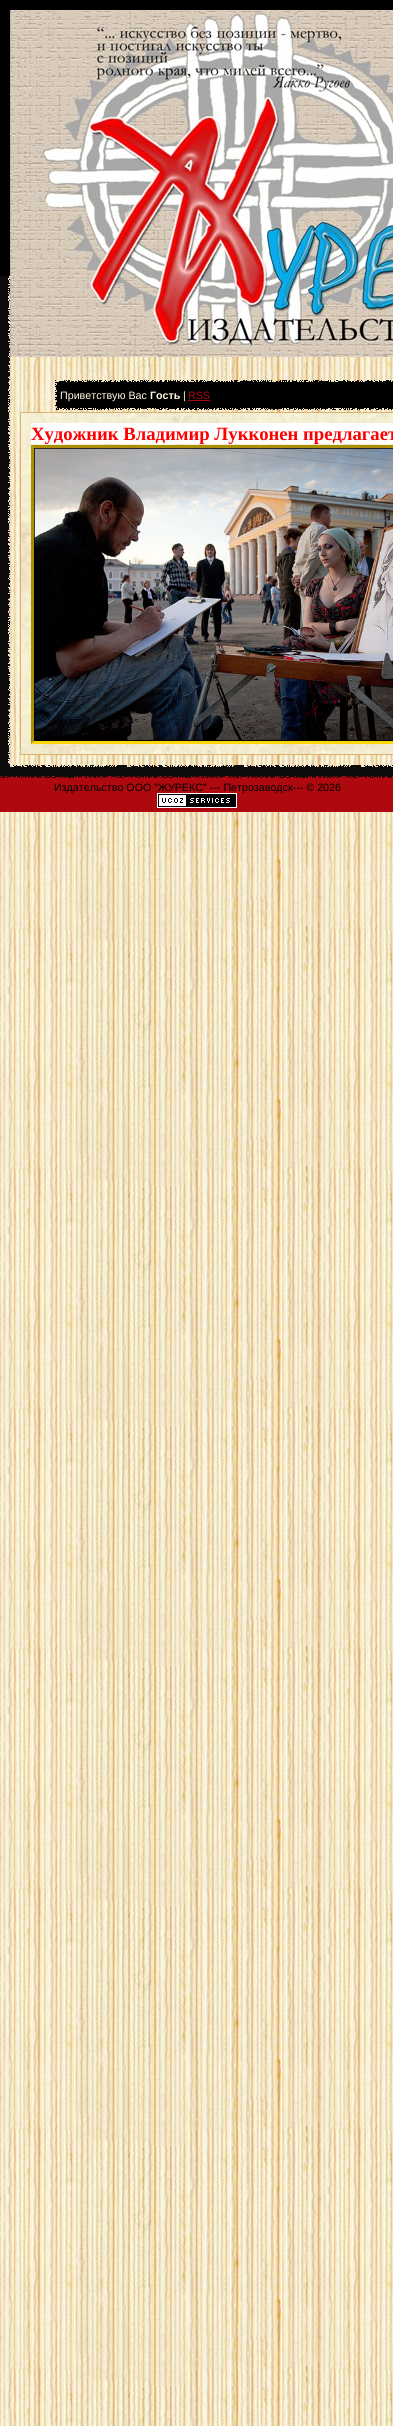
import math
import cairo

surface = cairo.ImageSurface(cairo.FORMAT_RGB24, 393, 2426)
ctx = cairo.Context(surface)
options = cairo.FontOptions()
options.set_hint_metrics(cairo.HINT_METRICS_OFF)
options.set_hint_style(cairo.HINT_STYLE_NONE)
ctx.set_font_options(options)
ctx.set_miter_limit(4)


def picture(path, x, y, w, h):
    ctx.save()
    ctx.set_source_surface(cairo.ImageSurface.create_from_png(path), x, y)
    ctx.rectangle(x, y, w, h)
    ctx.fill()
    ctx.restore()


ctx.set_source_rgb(1, 1, 1)
ctx.paint()
picture("img1.png", 0, 276, 393, 2150)
ctx.set_source_rgb(0, 0, 0)
ctx.rectangle(0, 0, 393, 10)
ctx.fill()
picture("img2.png", 55, 380, 338, 30)
ctx.select_font_face("Liberation Sans")
ctx.set_font_size(10.7)
ctx.set_source_rgb(1, 0.98, 0.875)
ctx.move_to(60, 399)
ctx.show_text("Приветствую Вас")
ctx.select_font_face("Liberation Sans", cairo.FONT_SLANT_NORMAL, cairo.FONT_WEIGHT_BOLD)
ctx.move_to(150, 399)
ctx.show_text("Гость")
ctx.select_font_face("Liberation Sans")
ctx.move_to(183, 399)
ctx.show_text("|")
ctx.set_source_rgb(0.678, 0.035, 0.055)
ctx.move_to(188, 399)
ctx.show_text("RSS")
ctx.rectangle(188, 400, 22, 1)
ctx.fill()
picture("img3.png", 0, 276, 10, 489)
ctx.set_source_rgb(0, 0, 0)
ctx.rectangle(0, 10, 10, 266)
ctx.fill()
picture("img4.png", 10, 10, 383, 347)
picture("img5.png", 21, 413, 372, 341)
ctx.rectangle(20.5, 412.5, 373, 342)
ctx.set_source_rgb(0.859, 0.698, 0.439)
ctx.set_line_width(1)
ctx.stroke()
ctx.set_source_rgb(1, 1, 1)
ctx.rectangle(31, 423, 362, 21)
ctx.fill()
ctx.select_font_face("Liberation Serif", cairo.FONT_SLANT_NORMAL, cairo.FONT_WEIGHT_BOLD)
ctx.set_font_size(18.7)
ctx.set_source_rgb(1, 0, 0)
ctx.move_to(31, 440)
ctx.show_text("Художник Владимир Лукконен предлагает")
ctx.set_source_rgb(0.667, 0.561, 0)
ctx.new_path()
ctx.move_to(31, 445)
ctx.line_to(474, 445)
ctx.line_to(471, 448)
ctx.line_to(34, 448)
ctx.close_path()
ctx.fill()
ctx.set_source_rgb(1, 0.843, 0)
ctx.new_path()
ctx.move_to(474, 744)
ctx.line_to(31, 744)
ctx.line_to(34, 741)
ctx.line_to(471, 741)
ctx.close_path()
ctx.fill()
ctx.set_source_rgb(0.667, 0.561, 0)
ctx.new_path()
ctx.move_to(31, 744)
ctx.line_to(31, 445)
ctx.line_to(34, 448)
ctx.line_to(34, 741)
ctx.close_path()
ctx.fill()
picture("img6.png", 34, 448, 359, 293)
picture("img7.png", 0, 765, 393, 47)
ctx.select_font_face("Liberation Sans")
ctx.set_font_size(10.7)
ctx.set_source_rgb(0, 0, 0)
ctx.move_to(54, 791)
ctx.show_text("Издательство ООО \"ЖУРЕКС\" --- Петрозаводск--- © 2026")
picture("img8.png", 157, 793, 80, 15)
surface.write_to_png("page.png")
